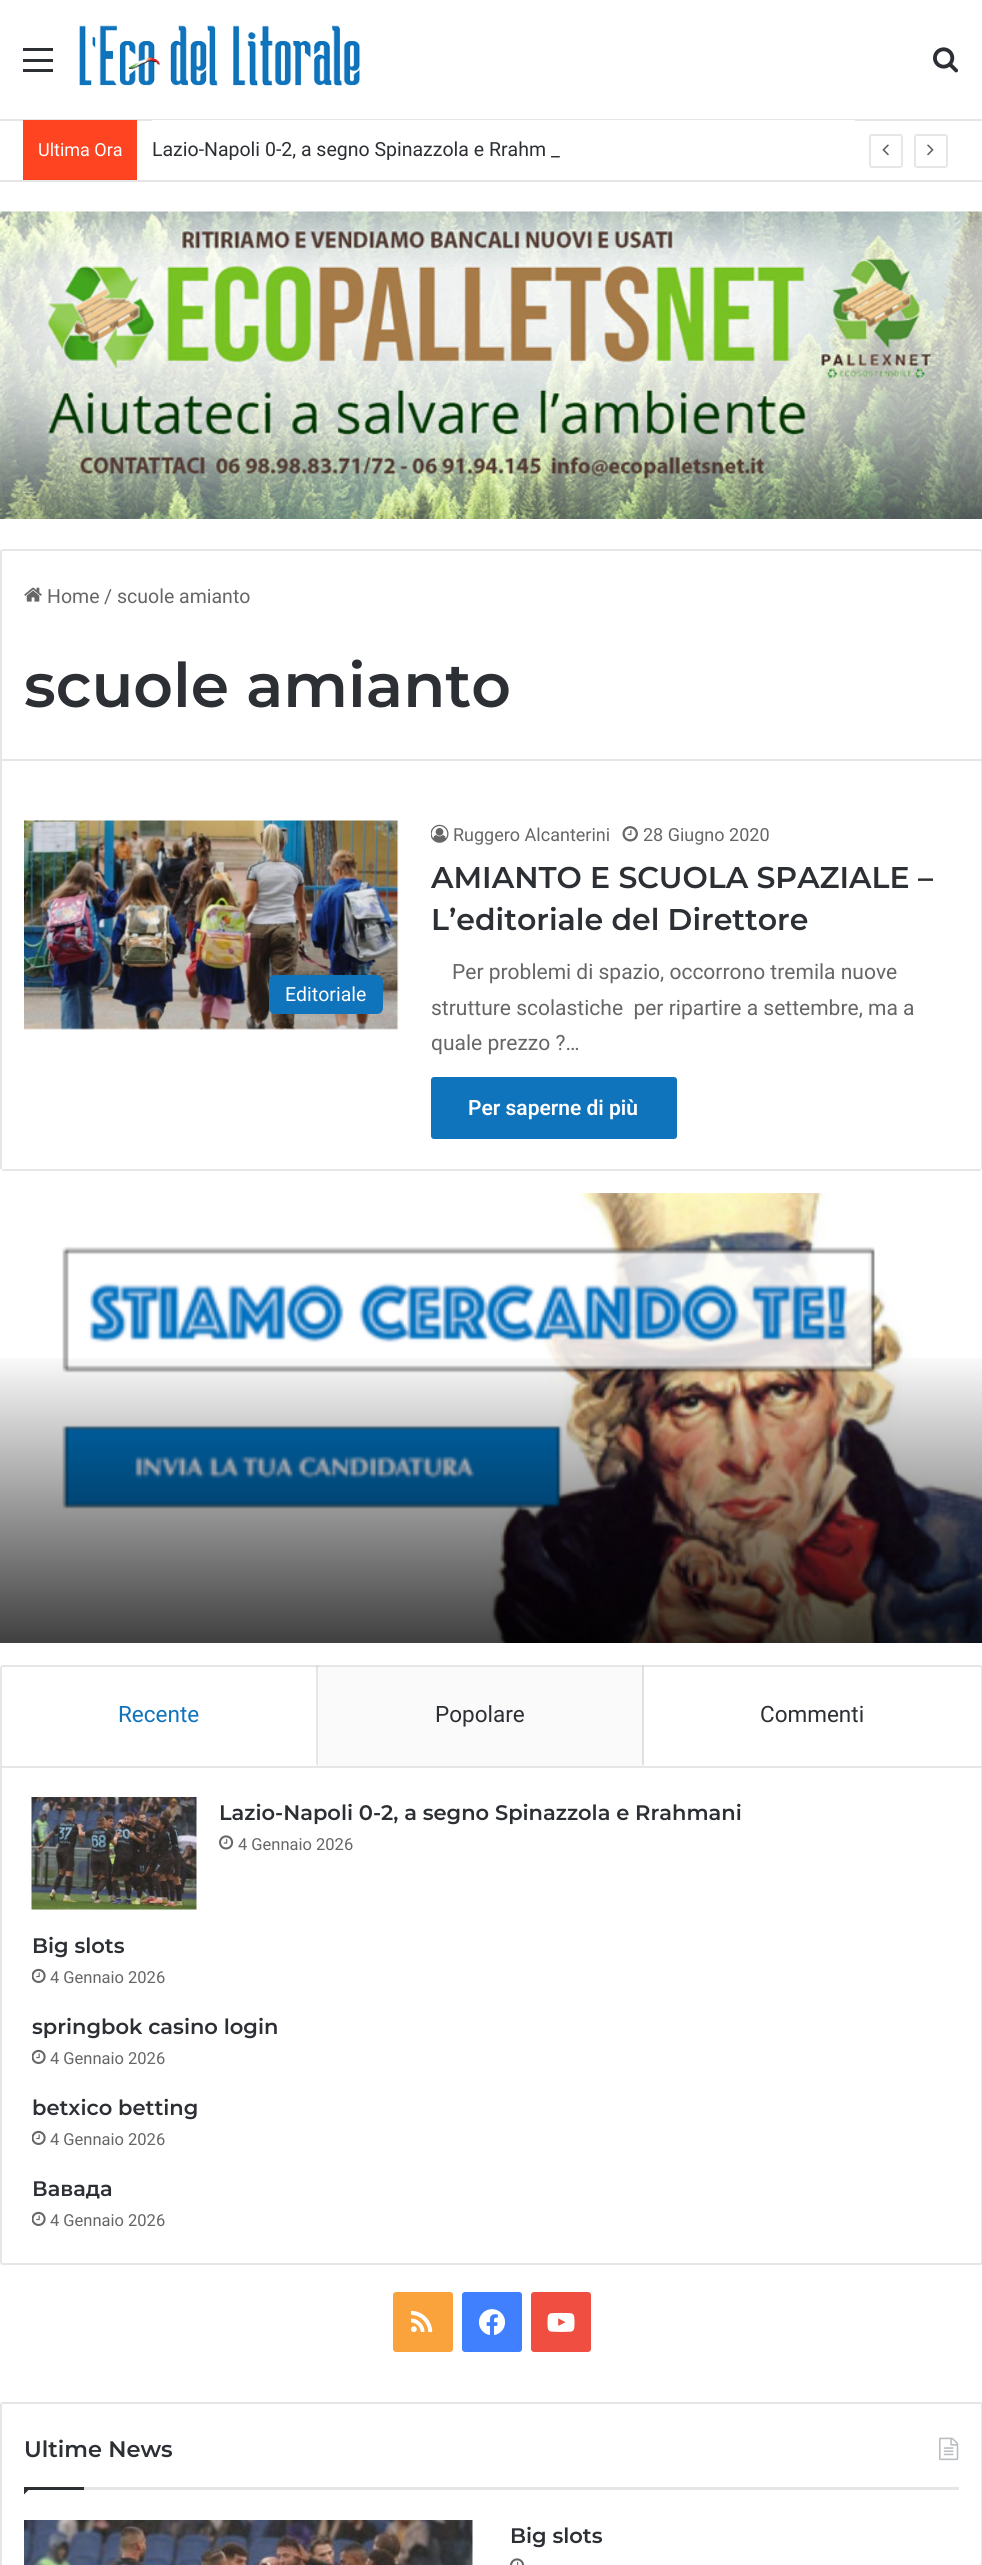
import math
import cairo

surface = cairo.ImageSurface(cairo.FORMAT_RGB24, 982, 2565)
ctx = cairo.Context(surface)
options = cairo.FontOptions()
options.set_hint_metrics(cairo.HINT_METRICS_OFF)
options.set_hint_style(cairo.HINT_STYLE_NONE)
ctx.set_font_options(options)
ctx.set_miter_limit(4)


def round_rect(x, y, w, h, r):
    ctx.new_sub_path()
    for i, (u, v) in enumerate([(x + w - r, y + h - r), (x + r, y + h - r), (x + r, y + r), (x + w - r, y + r)]):
        ctx.arc(u, v, r, i * math.pi / 2, (i + 1) * math.pi / 2)
    ctx.close_path()


def picture(path, x, y, w, h):
    ctx.save()
    ctx.set_source_surface(cairo.ImageSurface.create_from_png(path), x, y)
    ctx.rectangle(x, y, w, h)
    ctx.fill()
    ctx.restore()


ctx.set_source_rgb(1, 1, 1)
ctx.paint()
ctx.set_source_rgb(0.173, 0.184, 0.204)
ctx.rectangle(23, 59, 30, 3)
ctx.fill()
ctx.rectangle(23, 48, 30, 3)
ctx.fill()
ctx.rectangle(23, 69, 30, 3)
ctx.fill()
picture("img1.png", 79, 25, 281, 61)
picture("img2.png", 933, 47, 26, 26)
ctx.set_source_rgb(0.902, 0.902, 0.902)
ctx.rectangle(0, 119, 982, 2)
ctx.fill()
ctx.rectangle(0, 180, 982, 2)
ctx.fill()
ctx.set_source_rgb(1, 0.267, 0.133)
ctx.rectangle(23, 120, 114, 60)
ctx.fill()
ctx.select_font_face("Roboto")
ctx.set_font_size(18)
ctx.set_source_rgb(1, 1, 1)
ctx.move_to(38, 156)
ctx.show_text("Ultima Ora")
ctx.rectangle(152, 120, 703, 1)
ctx.fill()
ctx.set_font_size(19.5)
ctx.set_source_rgb(0.173, 0.184, 0.204)
ctx.move_to(152, 156)
ctx.show_text("Lazio-Napoli 0-2, a segno Spinazzola e Rrahm")
ctx.move_to(551, 156)
ctx.show_text("_")
round_rect(870, 135, 32, 32, 2)
ctx.set_source_rgb(0.902, 0.902, 0.902)
ctx.stroke()
picture("img3.png", 882, 144, 7, 12)
round_rect(915, 135, 32, 32, 2)
ctx.stroke()
picture("img4.png", 927, 144, 7, 12)
picture("img5.png", 0, 211, 982, 308)
ctx.new_path()
ctx.move_to(3, 550)
ctx.line_to(980, 550)
ctx.curve_to(981, 550, 982, 551, 982, 552)
ctx.line_to(982, 760)
ctx.line_to(1, 760)
ctx.line_to(1, 552)
ctx.curve_to(1, 551, 2, 550, 3, 550)
ctx.close_path()
ctx.stroke()
picture("img6.png", 24, 587, 18, 15)
ctx.set_source_rgb(0.4, 0.4, 0.4)
ctx.move_to(47, 603)
ctx.show_text("Home")
ctx.move_to(104, 603)
ctx.show_text("/")
ctx.move_to(117, 603)
ctx.show_text("scuole amianto")
ctx.select_font_face("Montserrat SemiBold")
ctx.set_font_size(61.5)
ctx.set_source_rgb(0.173, 0.184, 0.204)
ctx.move_to(24, 707)
ctx.show_text("scuole amianto")
ctx.set_source_rgb(0.902, 0.902, 0.902)
ctx.rectangle(981, 761, 1, 408)
ctx.fill()
ctx.rectangle(2, 1169, 979, 2)
ctx.fill()
ctx.rectangle(0, 761, 2, 408)
ctx.fill()
picture("img7.png", 24, 820, 375, 210)
ctx.set_source_rgb(0.063, 0.455, 0.737)
round_rect(269, 975, 114, 39, 6)
ctx.fill()
ctx.select_font_face("Roboto")
ctx.set_font_size(19.5)
ctx.set_source_rgb(1, 1, 1)
ctx.move_to(285, 1001)
ctx.show_text("Editoriale")
picture("img8.png", 431, 824, 18, 19)
ctx.set_font_size(18)
ctx.set_source_rgb(0.4, 0.4, 0.4)
ctx.move_to(453, 841)
ctx.show_text("Ruggero Alcanterini")
picture("img9.png", 622, 826, 16, 16)
ctx.move_to(643, 841)
ctx.show_text("28 Giugno 2020")
ctx.select_font_face("Montserrat SemiBold")
ctx.set_font_size(30)
ctx.set_source_rgb(0.173, 0.184, 0.204)
ctx.move_to(431, 888)
ctx.show_text("AMIANTO E SCUOLA SPAZIALE –")
ctx.move_to(431, 930)
ctx.show_text("L’editoriale del Direttore")
ctx.select_font_face("Roboto")
ctx.set_font_size(21)
ctx.set_source_rgb(0.4, 0.4, 0.4)
ctx.move_to(452, 979)
ctx.show_text("Per problemi di spazio, occorrono tremila nuove")
ctx.move_to(431, 1015)
ctx.show_text("strutture scolastiche  per ripartire a settembre, ma a")
ctx.move_to(431, 1050)
ctx.show_text("quale prezzo ?…")
ctx.set_source_rgb(0.063, 0.455, 0.737)
round_rect(431, 1077, 246, 62, 3)
ctx.fill()
ctx.select_font_face("Roboto SemiBold")
ctx.set_source_rgb(1, 1, 1)
ctx.move_to(468, 1115)
ctx.show_text("Per saperne di più")
picture("img10.png", 62, 1193, 920, 450)
gradient = cairo.LinearGradient(491, 1350, 491, 1643)
gradient.add_color_stop_rgba(0, 0, 0, 0, 0)
gradient.add_color_stop_rgba(1, 0, 0, 0, 0.75)
ctx.set_source(gradient)
ctx.rectangle(0, 1358, 982, 285)
ctx.fill()
round_rect(1, 1666, 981, 598, 2)
ctx.set_source_rgb(0.902, 0.902, 0.902)
ctx.stroke()
ctx.rectangle(2, 1766, 979, 2)
ctx.fill()
ctx.set_source_rgba(0, 0, 0, 0.1)
ctx.new_path()
ctx.move_to(318, 1666)
ctx.line_to(318, 1766)
ctx.line_to(316, 1764)
ctx.line_to(316, 1666)
ctx.close_path()
ctx.fill()
ctx.select_font_face("Roboto")
ctx.set_font_size(22.5)
ctx.set_source_rgb(0.063, 0.455, 0.737)
ctx.move_to(118, 1722)
ctx.show_text("Recente")
ctx.set_source_rgb(0.98, 0.98, 0.98)
ctx.rectangle(318, 1667, 326, 99)
ctx.fill()
ctx.set_source_rgba(0, 0, 0, 0.1)
ctx.new_path()
ctx.move_to(644, 1666)
ctx.line_to(644, 1766)
ctx.line_to(642, 1764)
ctx.line_to(642, 1666)
ctx.close_path()
ctx.fill()
ctx.set_source_rgb(0.173, 0.184, 0.204)
ctx.move_to(435, 1722)
ctx.show_text("Popolare")
ctx.move_to(760, 1722)
ctx.show_text("Commenti")
picture("img11.png", 31, 1797, 166, 113)
ctx.select_font_face("Montserrat SemiBold")
ctx.set_font_size(21)
ctx.move_to(219, 1820)
ctx.show_text("Lazio-Napoli 0-2, a segno Spinazzola e Rrahmani")
picture("img12.png", 219, 1835, 15, 15)
ctx.select_font_face("Roboto")
ctx.set_font_size(16.5)
ctx.set_source_rgb(0.4, 0.4, 0.4)
ctx.move_to(238, 1850)
ctx.show_text("4 Gennaio 2026")
ctx.select_font_face("Montserrat SemiBold")
ctx.set_font_size(21)
ctx.set_source_rgb(0.173, 0.184, 0.204)
ctx.move_to(32, 1953)
ctx.show_text("Big slots")
picture("img13.png", 32, 1968, 14, 15)
ctx.select_font_face("Roboto")
ctx.set_font_size(16.5)
ctx.set_source_rgb(0.4, 0.4, 0.4)
ctx.move_to(50, 1983)
ctx.show_text("4 Gennaio 2026")
ctx.select_font_face("Montserrat SemiBold")
ctx.set_font_size(21)
ctx.set_source_rgb(0.173, 0.184, 0.204)
ctx.move_to(32, 2034)
ctx.show_text("springbok casino login")
picture("img13.png", 32, 2049, 14, 15)
ctx.select_font_face("Roboto")
ctx.set_font_size(16.5)
ctx.set_source_rgb(0.4, 0.4, 0.4)
ctx.move_to(50, 2064)
ctx.show_text("4 Gennaio 2026")
ctx.select_font_face("Montserrat SemiBold")
ctx.set_font_size(21)
ctx.set_source_rgb(0.173, 0.184, 0.204)
ctx.move_to(32, 2115)
ctx.show_text("betxico betting")
picture("img13.png", 32, 2130, 14, 15)
ctx.select_font_face("Roboto")
ctx.set_font_size(16.5)
ctx.set_source_rgb(0.4, 0.4, 0.4)
ctx.move_to(50, 2145)
ctx.show_text("4 Gennaio 2026")
ctx.select_font_face("Montserrat SemiBold")
ctx.set_font_size(21)
ctx.set_source_rgb(0.173, 0.184, 0.204)
ctx.move_to(32, 2196)
ctx.show_text("Вавада")
picture("img13.png", 32, 2211, 14, 15)
ctx.select_font_face("Roboto")
ctx.set_font_size(16.5)
ctx.set_source_rgb(0.4, 0.4, 0.4)
ctx.move_to(50, 2226)
ctx.show_text("4 Gennaio 2026")
ctx.set_source_rgb(0.98, 0.639, 0.239)
round_rect(393, 2292, 60, 60, 3)
ctx.fill()
picture("img14.png", 411, 2310, 22, 23)
ctx.set_source_rgb(0.251, 0.502, 1)
round_rect(462, 2292, 60, 60, 3)
ctx.fill()
picture("img15.png", 478, 2309, 28, 27)
ctx.set_source_rgb(0.937, 0.306, 0.255)
round_rect(531, 2292, 60, 60, 3)
ctx.fill()
picture("img16.png", 547, 2312, 28, 20)
round_rect(1, 2403, 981, 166, 2)
ctx.set_source_rgb(0.902, 0.902, 0.902)
ctx.stroke()
ctx.rectangle(84, 2487, 875, 3)
ctx.fill()
ctx.select_font_face("Montserrat SemiBold")
ctx.set_font_size(22.5)
ctx.set_source_rgb(0.173, 0.184, 0.204)
ctx.move_to(24, 2457)
ctx.show_text("Ultime News")
picture("img17.png", 939, 2437, 20, 24)
ctx.new_path()
ctx.move_to(24, 2487)
ctx.line_to(31.5, 2487)
ctx.line_to(24, 2494.5)
ctx.close_path()
ctx.fill()
ctx.rectangle(24, 2487, 60, 3)
ctx.fill()
picture("img18.png", 24, 2520, 449, 45)
ctx.set_font_size(21)
ctx.move_to(510, 2543)
ctx.show_text("Big slots")
picture("img19.png", 510, 2558, 15, 7)
surface.write_to_png("page.png")
